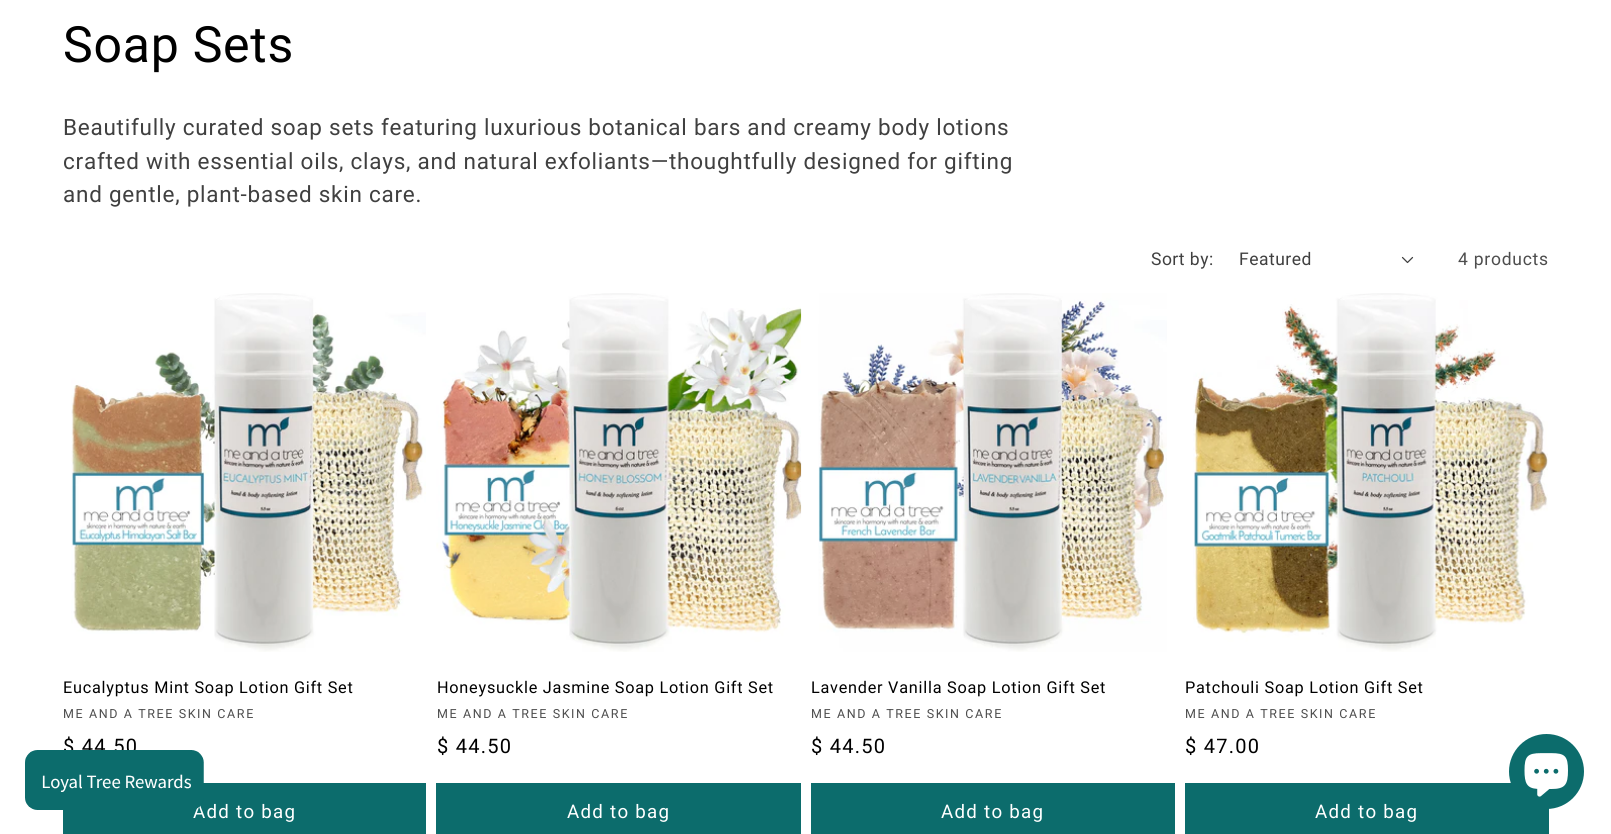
import math
import cairo

surface = cairo.ImageSurface(cairo.FORMAT_RGB24, 1611, 834)
ctx = cairo.Context(surface)
options = cairo.FontOptions()
options.set_hint_metrics(cairo.HINT_METRICS_OFF)
options.set_hint_style(cairo.HINT_STYLE_NONE)
ctx.set_font_options(options)
ctx.set_miter_limit(4)


def spaced_text(x, y, s, letter, word):
    ctx.move_to(x, y)
    for ch in s:
        ctx.show_text(ch)
        ctx.rel_move_to(letter + word * (ch == ' '), 0)


def picture(path, x, y, w, h):
    ctx.save()
    ctx.set_source_surface(cairo.ImageSurface.create_from_png(path), x, y)
    ctx.rectangle(x, y, w, h)
    ctx.fill()
    ctx.restore()


ctx.set_source_rgb(1, 1, 1)
ctx.paint()
ctx.select_font_face("Roboto")
ctx.set_font_size(50)
ctx.set_source_rgb(0, 0, 0)
spaced_text(63, 62, "Soap Sets", 0.75, 0)
ctx.set_font_size(22.5)
ctx.set_source_rgb(0.251, 0.251, 0.251)
spaced_text(63, 135, "Beautifully curated soap sets featuring luxurious botanical bars and creamy body lotions", 0.75, 0)
spaced_text(63, 169, "crafted with essential oils, clays, and natural exfoliants—thoughtfully designed for gifting", 0.75, 0)
spaced_text(63, 202, "and gentle, plant-based skin care.", 0.75, 0)
ctx.set_font_size(17.5)
spaced_text(1151, 265, "Sort by:", 0.5, 0)
spaced_text(1239, 265, "Featured", 0.5, 0)
picture("img1.png", 1401, 256, 13, 8)
ctx.set_source_rgb(0.302, 0.302, 0.302)
spaced_text(1458, 265, "4 products", 0.75, 0)
picture("img2.png", 71, 293, 355, 359)
ctx.set_font_size(16.25)
ctx.set_source_rgb(0, 0, 0)
spaced_text(63, 693, "Eucalyptus Mint Soap Lotion Gift Set", 0.75, 0)
ctx.set_font_size(12.5)
ctx.set_source_rgb(0.302, 0.302, 0.302)
spaced_text(63, 718, "ME AND A TREE SKIN CARE", 1.6, 0)
ctx.set_font_size(20)
ctx.set_source_rgb(0, 0, 0)
spaced_text(63, 753, "$ 44.50", 1.25, 0)
ctx.set_source_rgb(0.047, 0.424, 0.424)
ctx.rectangle(64, 784, 361, 50)
ctx.fill()
ctx.rectangle(63.5, 783.5, 362, 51)
ctx.set_line_width(1)
ctx.stroke()
ctx.set_font_size(18.75)
ctx.set_source_rgb(1, 1, 1)
spaced_text(193, 818, "Add to bag", 1.25, 0)
picture("img3.png", 436, 293, 366, 359)
ctx.set_font_size(16.25)
ctx.set_source_rgb(0, 0, 0)
spaced_text(437, 693, "Honeysuckle Jasmine Soap Lotion Gift Set", 0.75, 0)
ctx.set_font_size(12.5)
ctx.set_source_rgb(0.302, 0.302, 0.302)
spaced_text(437, 718, "ME AND A TREE SKIN CARE", 1.6, 0)
ctx.set_font_size(20)
ctx.set_source_rgb(0, 0, 0)
spaced_text(437, 753, "$ 44.50", 1.25, 0)
ctx.set_source_rgb(0.047, 0.424, 0.424)
ctx.rectangle(437, 784, 363, 50)
ctx.fill()
ctx.rectangle(436.5, 783.5, 364, 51)
ctx.stroke()
ctx.set_font_size(18.75)
ctx.set_source_rgb(1, 1, 1)
spaced_text(567, 818, "Add to bag", 1.25, 0)
picture("img4.png", 818, 293, 349, 359)
ctx.set_font_size(16.25)
ctx.set_source_rgb(0, 0, 0)
spaced_text(811, 693, "Lavender Vanilla Soap Lotion Gift Set", 0.75, 0)
ctx.set_font_size(12.5)
ctx.set_source_rgb(0.302, 0.302, 0.302)
spaced_text(811, 718, "ME AND A TREE SKIN CARE", 1.6, 0)
ctx.set_font_size(20)
ctx.set_source_rgb(0, 0, 0)
spaced_text(811, 753, "$ 44.50", 1.25, 0)
ctx.set_source_rgb(0.047, 0.424, 0.424)
ctx.rectangle(812, 784, 362, 50)
ctx.fill()
ctx.rectangle(811.5, 783.5, 363, 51)
ctx.stroke()
ctx.set_font_size(18.75)
ctx.set_source_rgb(1, 1, 1)
spaced_text(941, 818, "Add to bag", 1.25, 0)
picture("img5.png", 1193, 293, 355, 359)
ctx.set_font_size(16.25)
ctx.set_source_rgb(0, 0, 0)
spaced_text(1185, 693, "Patchouli Soap Lotion Gift Set", 0.75, 0)
ctx.set_font_size(12.5)
ctx.set_source_rgb(0.302, 0.302, 0.302)
spaced_text(1185, 718, "ME AND A TREE SKIN CARE", 1.6, 0)
ctx.set_font_size(20)
ctx.set_source_rgb(0, 0, 0)
spaced_text(1185, 753, "$ 47.00", 1.25, 0)
ctx.set_source_rgb(0.047, 0.424, 0.424)
ctx.rectangle(1186, 784, 362, 50)
ctx.fill()
ctx.rectangle(1185.5, 783.5, 363, 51)
ctx.stroke()
ctx.set_font_size(18.75)
ctx.set_source_rgb(1, 1, 1)
spaced_text(1315, 818, "Add to bag", 1.25, 0)
picture("img6.png", 25, 750, 179, 60)
ctx.set_source_rgb(0.047, 0.424, 0.424)
ctx.arc(1546.5, 771.5, 37.5, 0, 2 * math.pi)
ctx.fill()
picture("img7.png", 1524, 753, 44, 44)
surface.write_to_png("page.png")
